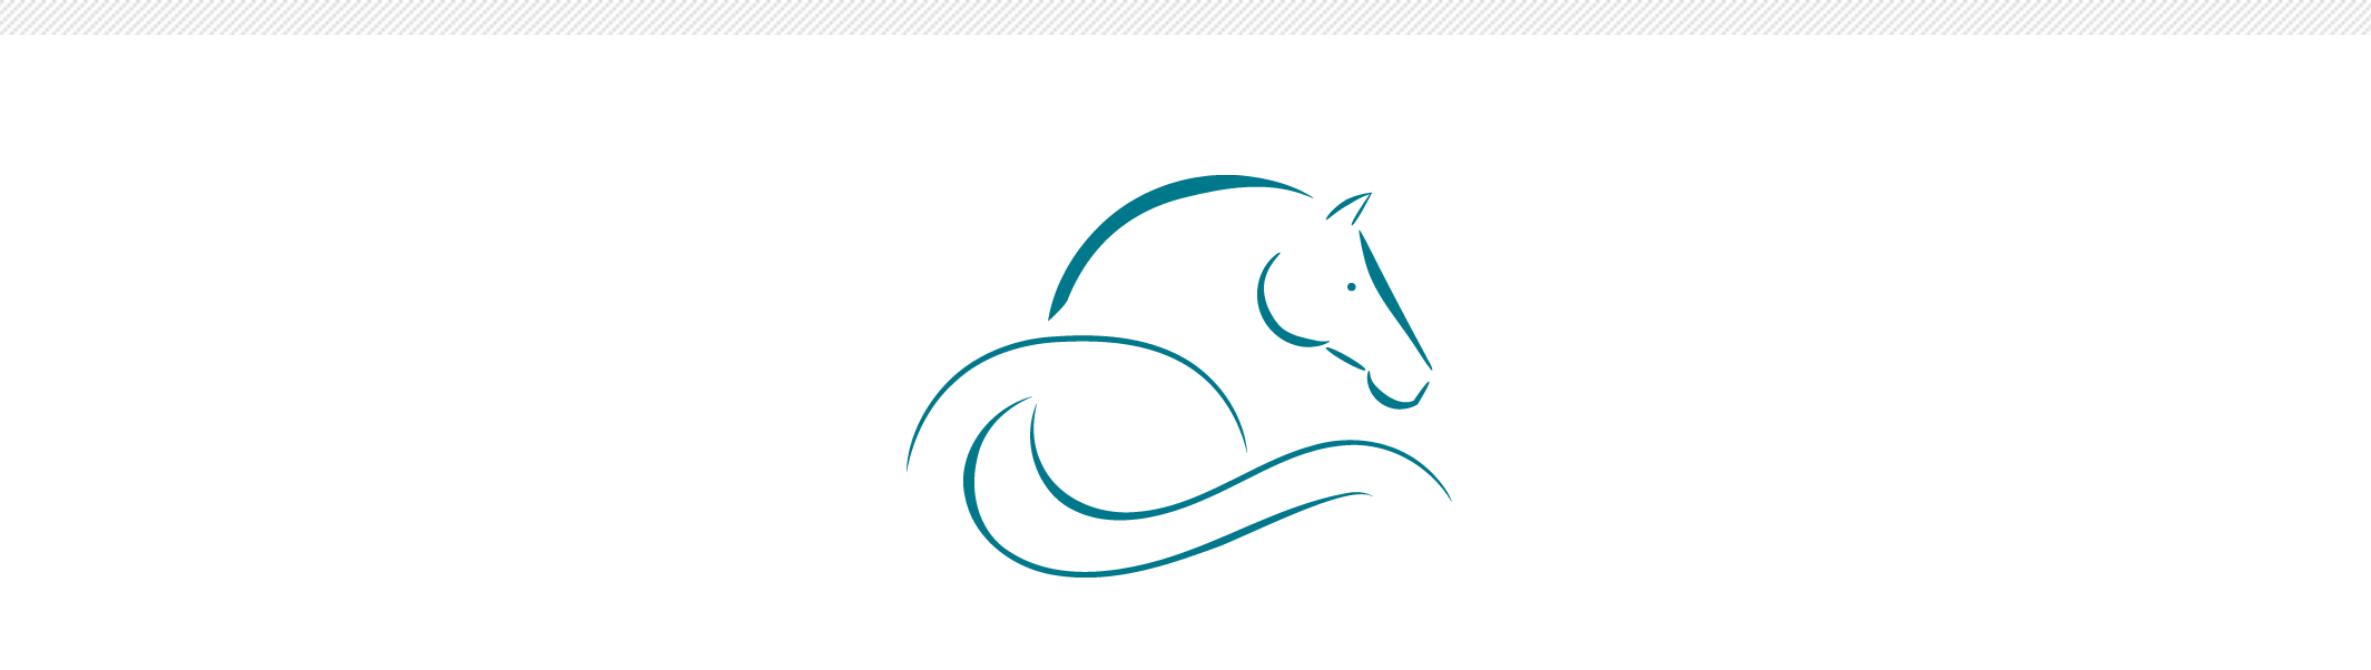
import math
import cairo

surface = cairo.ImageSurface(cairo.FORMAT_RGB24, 2371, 670)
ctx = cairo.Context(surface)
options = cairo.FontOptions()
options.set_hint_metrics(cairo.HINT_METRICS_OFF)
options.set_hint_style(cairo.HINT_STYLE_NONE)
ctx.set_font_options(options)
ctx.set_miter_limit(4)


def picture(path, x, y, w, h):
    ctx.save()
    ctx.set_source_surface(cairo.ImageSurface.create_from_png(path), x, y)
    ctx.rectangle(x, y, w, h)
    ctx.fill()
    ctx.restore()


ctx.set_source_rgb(1, 1, 1)
ctx.paint()
picture("img1.png", 0, 0, 2371, 35)
picture("img2.png", 906, 175, 547, 403)
surface.write_to_png("page.png")
